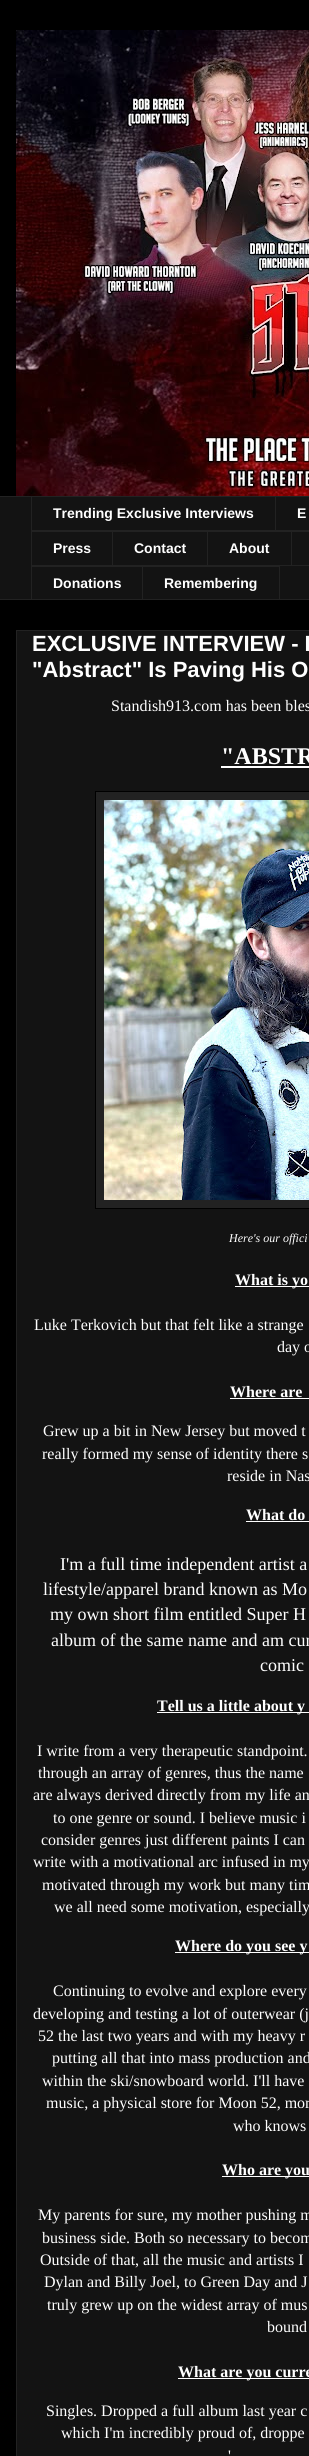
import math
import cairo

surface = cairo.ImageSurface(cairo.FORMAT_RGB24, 309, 2456)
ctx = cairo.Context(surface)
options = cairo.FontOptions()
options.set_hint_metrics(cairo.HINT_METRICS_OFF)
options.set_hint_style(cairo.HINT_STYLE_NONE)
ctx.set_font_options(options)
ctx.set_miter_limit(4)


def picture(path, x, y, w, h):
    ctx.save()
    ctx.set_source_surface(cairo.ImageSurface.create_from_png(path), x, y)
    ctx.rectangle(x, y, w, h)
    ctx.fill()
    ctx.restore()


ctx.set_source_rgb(0, 0, 0)
ctx.paint()
picture("img1.png", 16, 30, 293, 466)
ctx.set_source_rgb(0.078, 0.078, 0.078)
ctx.rectangle(0, 497, 309, 102)
ctx.fill()
ctx.set_source_rgb(0.133, 0.133, 0.133)
ctx.rectangle(0, 496, 309, 1)
ctx.fill()
ctx.rectangle(31, 530, 278, 1)
ctx.fill()
ctx.rectangle(31, 496, 1, 35)
ctx.fill()
ctx.select_font_face("Liberation Sans", cairo.FONT_SLANT_NORMAL, cairo.FONT_WEIGHT_BOLD)
ctx.set_font_size(14)
ctx.set_source_rgb(1, 1, 1)
ctx.move_to(53, 518)
ctx.show_text("Trending Exclusive Interviews")
ctx.set_source_rgb(0.133, 0.133, 0.133)
ctx.rectangle(275, 496, 1, 35)
ctx.fill()
ctx.set_source_rgb(1, 1, 1)
ctx.move_to(297, 518)
ctx.show_text("E")
ctx.set_source_rgb(0.133, 0.133, 0.133)
ctx.rectangle(31, 531, 278, 1)
ctx.fill()
ctx.rectangle(31, 565, 278, 1)
ctx.fill()
ctx.rectangle(31, 531, 1, 35)
ctx.fill()
ctx.set_source_rgb(1, 1, 1)
ctx.move_to(53, 553)
ctx.show_text("Press")
ctx.set_source_rgb(0.133, 0.133, 0.133)
ctx.rectangle(112, 531, 1, 35)
ctx.fill()
ctx.set_source_rgb(1, 1, 1)
ctx.move_to(134, 553)
ctx.show_text("Contact")
ctx.set_source_rgb(0.133, 0.133, 0.133)
ctx.rectangle(207, 531, 1, 35)
ctx.fill()
ctx.set_source_rgb(1, 1, 1)
ctx.move_to(229, 553)
ctx.show_text("About")
ctx.set_source_rgb(0.133, 0.133, 0.133)
ctx.rectangle(291, 531, 1, 35)
ctx.fill()
ctx.rectangle(31, 566, 111, 1)
ctx.fill()
ctx.rectangle(31, 566, 1, 34)
ctx.fill()
ctx.set_source_rgb(1, 1, 1)
ctx.move_to(53, 588)
ctx.show_text("Donations")
ctx.rectangle(142.5, 566.5, 137, 33)
ctx.set_source_rgb(0.133, 0.133, 0.133)
ctx.set_line_width(1)
ctx.stroke()
ctx.set_source_rgb(1, 1, 1)
ctx.move_to(164, 588)
ctx.show_text("Remembering")
ctx.set_source_rgb(0.133, 0.133, 0.133)
ctx.rectangle(0, 599, 309, 1)
ctx.fill()
ctx.set_source_rgb(0.078, 0.078, 0.078)
ctx.rectangle(16.5, 630.5, 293, 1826)
ctx.fill_preserve()
ctx.set_source_rgb(0.133, 0.133, 0.133)
ctx.stroke()
ctx.set_font_size(22)
ctx.set_source_rgb(1, 1, 1)
ctx.move_to(32, 651)
ctx.show_text("EXCLUSIVE INTERVIEW - I")
ctx.move_to(32, 677)
ctx.show_text("\"Abstract\" Is Paving His O")
ctx.select_font_face("Liberation Serif")
ctx.set_font_size(16)
ctx.move_to(111, 711)
ctx.show_text("Standish913.com has been bles")
ctx.select_font_face("Liberation Serif", cairo.FONT_SLANT_NORMAL, cairo.FONT_WEIGHT_BOLD)
ctx.set_font_size(24)
ctx.move_to(221, 764)
ctx.show_text("\"ABSTR")
ctx.rectangle(221, 766, 88, 2)
ctx.fill()
ctx.set_source_rgb(0.133, 0.133, 0.133)
ctx.rectangle(95.5, 791.5, 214, 417)
ctx.fill_preserve()
ctx.set_source_rgb(0, 0, 0)
ctx.stroke()
picture("img2.png", 104, 800, 205, 400)
ctx.select_font_face("Liberation Serif", cairo.FONT_SLANT_ITALIC)
ctx.set_font_size(12)
ctx.set_source_rgb(1, 1, 1)
ctx.move_to(229, 1242)
ctx.show_text("Here's our offici")
ctx.rectangle(235, 1286, 74, 1)
ctx.fill()
ctx.select_font_face("Liberation Serif", cairo.FONT_SLANT_NORMAL, cairo.FONT_WEIGHT_BOLD)
ctx.set_font_size(16)
ctx.move_to(235, 1285)
ctx.show_text("What is yo")
ctx.select_font_face("Liberation Serif")
ctx.move_to(34, 1330)
ctx.show_text("Luke Terkovich but that felt like a strange")
ctx.move_to(277, 1352)
ctx.show_text("day o")
ctx.select_font_face("Liberation Serif", cairo.FONT_SLANT_NORMAL, cairo.FONT_WEIGHT_BOLD)
ctx.move_to(230, 1397)
ctx.show_text("Where are")
ctx.rectangle(230, 1398, 79, 1)
ctx.fill()
ctx.select_font_face("Liberation Serif")
ctx.move_to(43, 1436)
ctx.show_text("Grew up a bit in New Jersey but moved t")
ctx.move_to(42, 1459)
ctx.show_text("really formed my sense of identity there s")
ctx.move_to(227, 1481)
ctx.show_text("reside in Nas")
ctx.select_font_face("Liberation Serif", cairo.FONT_SLANT_NORMAL, cairo.FONT_WEIGHT_BOLD)
ctx.move_to(246, 1520)
ctx.show_text("What do")
ctx.rectangle(246, 1521, 63, 1)
ctx.fill()
ctx.select_font_face("Liberation Serif")
ctx.set_font_size(18)
ctx.move_to(60, 1570)
ctx.show_text("I'm a full time independent artist a")
ctx.move_to(43, 1595)
ctx.show_text("lifestyle/apparel brand known as Mo")
ctx.move_to(50, 1620)
ctx.show_text("my own short film entitled Super H")
ctx.move_to(51, 1646)
ctx.show_text("album of the same name and am cur")
ctx.move_to(260, 1671)
ctx.show_text("comic")
ctx.rectangle(157, 1712, 152, 1)
ctx.fill()
ctx.select_font_face("Liberation Serif", cairo.FONT_SLANT_NORMAL, cairo.FONT_WEIGHT_BOLD)
ctx.set_font_size(16)
ctx.move_to(157, 1711)
ctx.show_text("Tell us a little about y")
ctx.select_font_face("Liberation Serif")
ctx.move_to(37, 1756)
ctx.show_text("I write from a very therapeutic standpoint.")
ctx.move_to(38, 1778)
ctx.show_text("through an array of genres, thus the name")
ctx.move_to(33, 1800)
ctx.show_text("are always derived directly from my life an")
ctx.move_to(53, 1823)
ctx.show_text("to one genre or sound. I believe music i")
ctx.move_to(41, 1845)
ctx.show_text("consider genres just different paints I can")
ctx.move_to(33, 1867)
ctx.show_text("write with a motivational arc infused in my")
ctx.move_to(42, 1890)
ctx.show_text("motivated through my work but many tim")
ctx.move_to(54, 1912)
ctx.show_text("we all need some motivation, especially")
ctx.rectangle(175, 1952, 134, 1)
ctx.fill()
ctx.select_font_face("Liberation Serif", cairo.FONT_SLANT_NORMAL, cairo.FONT_WEIGHT_BOLD)
ctx.move_to(175, 1951)
ctx.show_text("Where do you see y")
ctx.select_font_face("Liberation Serif")
ctx.move_to(53, 1996)
ctx.show_text("Continuing to evolve and explore every")
ctx.move_to(33, 2019)
ctx.show_text("developing and testing a lot of outerwear (j")
ctx.move_to(38, 2041)
ctx.show_text("52 the last two years and with my heavy r")
ctx.move_to(52, 2063)
ctx.show_text("putting all that into mass production and")
ctx.move_to(42, 2086)
ctx.show_text("within the ski/snowboard world. I'll have")
ctx.move_to(46, 2108)
ctx.show_text("music, a physical store for Moon 52, mor")
ctx.move_to(233, 2131)
ctx.show_text("who knows")
ctx.rectangle(222, 2176, 87, 1)
ctx.fill()
ctx.select_font_face("Liberation Serif", cairo.FONT_SLANT_NORMAL, cairo.FONT_WEIGHT_BOLD)
ctx.move_to(222, 2175)
ctx.show_text("Who are you")
ctx.select_font_face("Liberation Serif")
ctx.move_to(38, 2220)
ctx.show_text("My parents for sure, my mother pushing m")
ctx.move_to(42, 2243)
ctx.show_text("business side. Both so necessary to becom")
ctx.move_to(40, 2265)
ctx.show_text("Outside of that, all the music and artists I")
ctx.move_to(44, 2287)
ctx.show_text("Dylan and Billy Joel, to Green Day and J")
ctx.move_to(47, 2310)
ctx.show_text("truly grew up on the widest array of mus")
ctx.move_to(267, 2332)
ctx.show_text("bound")
ctx.rectangle(178, 2378, 131, 1)
ctx.fill()
ctx.select_font_face("Liberation Serif", cairo.FONT_SLANT_NORMAL, cairo.FONT_WEIGHT_BOLD)
ctx.move_to(178, 2377)
ctx.show_text("What are you curre")
ctx.select_font_face("Liberation Serif")
ctx.move_to(46, 2416)
ctx.show_text("Singles. Dropped a full album last year c")
ctx.move_to(61, 2438)
ctx.show_text("which I'm incredibly proud of, droppe")
ctx.move_to(228, 2461)
ctx.show_text("'")
surface.write_to_png("page.png")
